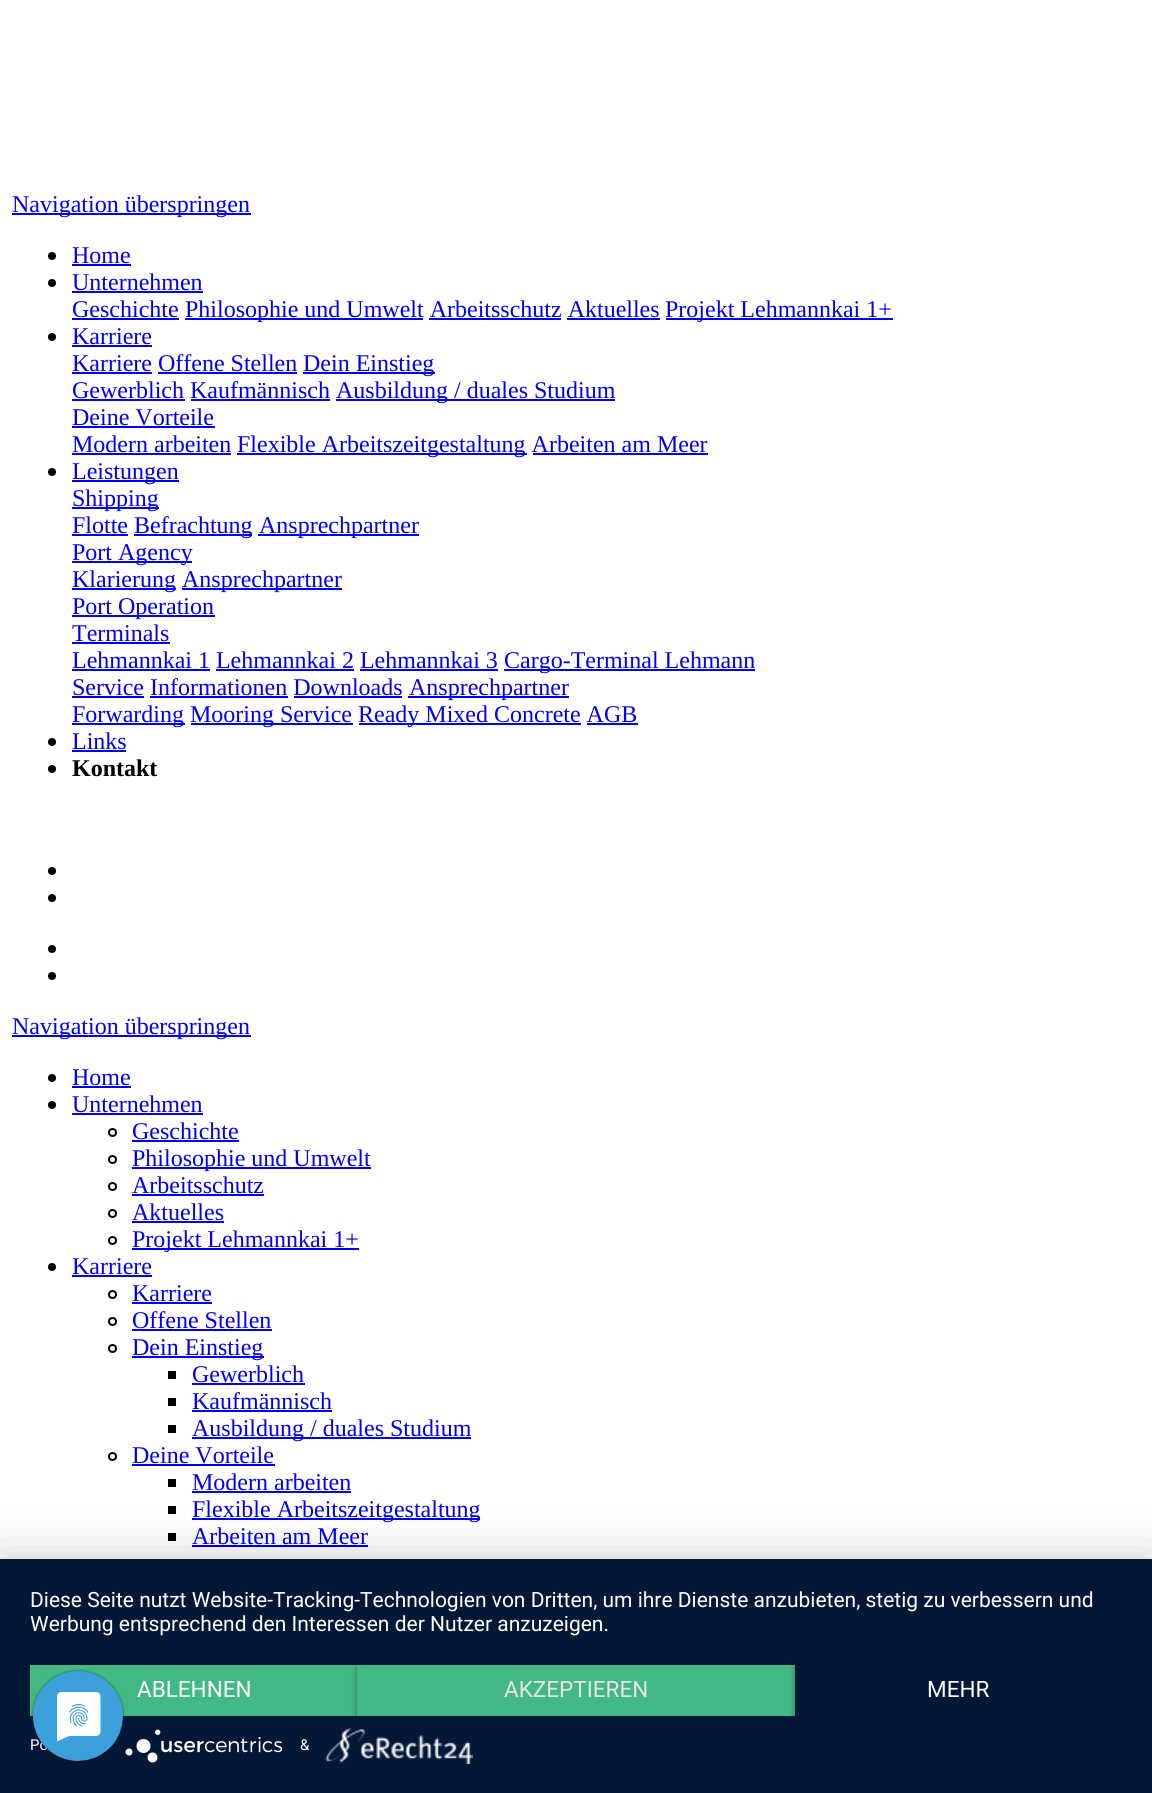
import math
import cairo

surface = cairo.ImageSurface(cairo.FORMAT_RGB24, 1152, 1793)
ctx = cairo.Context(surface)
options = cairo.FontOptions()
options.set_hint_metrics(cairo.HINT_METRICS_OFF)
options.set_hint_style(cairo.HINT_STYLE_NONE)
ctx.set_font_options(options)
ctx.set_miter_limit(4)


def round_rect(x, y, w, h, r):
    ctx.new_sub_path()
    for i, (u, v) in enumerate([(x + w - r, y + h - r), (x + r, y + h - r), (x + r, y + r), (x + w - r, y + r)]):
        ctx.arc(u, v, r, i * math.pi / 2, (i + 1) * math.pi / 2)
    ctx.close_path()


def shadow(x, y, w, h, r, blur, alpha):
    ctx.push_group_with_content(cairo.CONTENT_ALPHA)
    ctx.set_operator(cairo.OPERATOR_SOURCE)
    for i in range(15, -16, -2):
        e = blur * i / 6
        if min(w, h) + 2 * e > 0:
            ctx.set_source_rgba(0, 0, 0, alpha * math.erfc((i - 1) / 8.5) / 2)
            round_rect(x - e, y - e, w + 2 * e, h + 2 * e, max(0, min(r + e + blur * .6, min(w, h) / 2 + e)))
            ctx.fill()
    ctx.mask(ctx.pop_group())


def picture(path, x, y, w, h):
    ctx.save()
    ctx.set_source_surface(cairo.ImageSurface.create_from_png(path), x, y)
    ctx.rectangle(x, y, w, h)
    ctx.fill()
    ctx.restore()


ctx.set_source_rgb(1, 1, 1)
ctx.paint()
ctx.set_source_rgb(0, 0, 0.933)
ctx.rectangle(12, 213, 239, 2)
ctx.fill()
ctx.select_font_face("Liberation Serif")
ctx.set_font_size(24)
ctx.move_to(12, 212)
ctx.show_text("Navigation überspringen")
ctx.set_source_rgb(0, 0, 0)
ctx.new_path()
ctx.arc(52, 256, 4, 0, 2 * math.pi)
ctx.fill()
ctx.set_source_rgb(0, 0, 0.933)
ctx.move_to(72, 263)
ctx.show_text("Home")
ctx.rectangle(72, 264, 59, 2)
ctx.fill()
ctx.set_source_rgb(0, 0, 0)
ctx.arc(52, 283, 4, 0, 2 * math.pi)
ctx.fill()
ctx.set_source_rgb(0, 0, 0.933)
ctx.move_to(72, 290)
ctx.show_text("Unternehmen")
ctx.rectangle(72, 291, 131, 2)
ctx.fill()
ctx.move_to(72, 317)
ctx.show_text("Geschichte")
ctx.rectangle(72, 318, 107, 2)
ctx.fill()
ctx.rectangle(185, 318, 238, 2)
ctx.fill()
ctx.move_to(185, 317)
ctx.show_text("Philosophie und Umwelt Arbeitsschutz Aktuelles")
ctx.rectangle(666, 318, 227, 2)
ctx.fill()
ctx.move_to(665, 317)
ctx.show_text("Projekt Lehmannkai 1+")
ctx.rectangle(429, 318, 132, 2)
ctx.fill()
ctx.rectangle(567, 318, 93, 2)
ctx.fill()
ctx.set_source_rgb(0, 0, 0)
ctx.arc(52, 337, 4, 0, 2 * math.pi)
ctx.fill()
ctx.set_source_rgb(0, 0, 0.933)
ctx.move_to(72, 344)
ctx.show_text("Karriere")
ctx.rectangle(72, 345, 80, 2)
ctx.fill()
ctx.move_to(72, 371)
ctx.show_text("Karriere Offene Stellen")
ctx.rectangle(72, 372, 80, 2)
ctx.fill()
ctx.rectangle(303, 372, 132, 2)
ctx.fill()
ctx.move_to(303, 371)
ctx.show_text("Dein Einstieg")
ctx.rectangle(158, 372, 139, 2)
ctx.fill()
ctx.move_to(72, 398)
ctx.show_text("Gewerblich Kaufmännisch")
ctx.rectangle(72, 399, 113, 2)
ctx.fill()
ctx.rectangle(336, 399, 279, 2)
ctx.fill()
ctx.move_to(336, 398)
ctx.show_text("Ausbildung / duales Studium")
ctx.rectangle(191, 399, 139, 2)
ctx.fill()
ctx.move_to(72, 425)
ctx.show_text("Deine Vorteile")
ctx.rectangle(72, 426, 143, 2)
ctx.fill()
ctx.move_to(72, 452)
ctx.show_text("Modern arbeiten")
ctx.rectangle(72, 453, 159, 2)
ctx.fill()
ctx.rectangle(237, 453, 290, 2)
ctx.fill()
ctx.move_to(237, 452)
ctx.show_text("Flexible Arbeitszeitgestaltung Arbeiten am Meer")
ctx.rectangle(533, 453, 175, 2)
ctx.fill()
ctx.set_source_rgb(0, 0, 0)
ctx.arc(52, 472, 4, 0, 2 * math.pi)
ctx.fill()
ctx.set_source_rgb(0, 0, 0.933)
ctx.rectangle(72, 480, 107, 2)
ctx.fill()
ctx.move_to(72, 479)
ctx.show_text("Leistungen")
ctx.rectangle(72, 507, 87, 2)
ctx.fill()
ctx.move_to(72, 506)
ctx.show_text("Shipping")
ctx.move_to(72, 533)
ctx.show_text("Flotte")
ctx.rectangle(72, 534, 56, 2)
ctx.fill()
ctx.rectangle(134, 534, 118, 2)
ctx.fill()
ctx.move_to(134, 533)
ctx.show_text("Befrachtung")
ctx.rectangle(258, 534, 161, 2)
ctx.fill()
ctx.move_to(259, 533)
ctx.show_text("Ansprechpartner")
ctx.rectangle(72, 561, 120, 2)
ctx.fill()
ctx.move_to(72, 560)
ctx.show_text("Port Agency")
ctx.rectangle(72, 588, 104, 2)
ctx.fill()
ctx.move_to(72, 587)
ctx.show_text("Klarierung")
ctx.rectangle(182, 588, 160, 2)
ctx.fill()
ctx.move_to(182, 587)
ctx.show_text("Ansprechpartner")
ctx.rectangle(72, 615, 143, 2)
ctx.fill()
ctx.move_to(72, 614)
ctx.show_text("Port Operation")
ctx.move_to(72, 641)
ctx.show_text("Terminals")
ctx.rectangle(72, 642, 98, 2)
ctx.fill()
ctx.move_to(72, 668)
ctx.show_text("Lehmannkai 1 Lehmannkai 2 Lehmannkai 3")
ctx.rectangle(72, 669, 138, 2)
ctx.fill()
ctx.rectangle(504, 669, 251, 2)
ctx.fill()
ctx.move_to(504, 668)
ctx.show_text("Cargo-Terminal Lehmann")
ctx.rectangle(216, 669, 138, 2)
ctx.fill()
ctx.rectangle(360, 669, 138, 2)
ctx.fill()
ctx.move_to(72, 695)
ctx.show_text("Service Informationen Downloads")
ctx.rectangle(72, 696, 72, 2)
ctx.fill()
ctx.rectangle(408, 696, 161, 2)
ctx.fill()
ctx.move_to(409, 695)
ctx.show_text("Ansprechpartner")
ctx.rectangle(150, 696, 138, 2)
ctx.fill()
ctx.rectangle(294, 696, 108, 2)
ctx.fill()
ctx.rectangle(72, 723, 113, 2)
ctx.fill()
ctx.move_to(72, 722)
ctx.show_text("Forwarding")
ctx.rectangle(191, 723, 162, 2)
ctx.fill()
ctx.move_to(190, 722)
ctx.show_text("Mooring Service")
ctx.rectangle(359, 723, 222, 2)
ctx.fill()
ctx.move_to(358, 722)
ctx.show_text("Ready Mixed Concrete AGB")
ctx.rectangle(587, 723, 51, 2)
ctx.fill()
ctx.set_source_rgb(0, 0, 0)
ctx.arc(52, 742, 4, 0, 2 * math.pi)
ctx.fill()
ctx.set_source_rgb(0, 0, 0.933)
ctx.move_to(72, 749)
ctx.show_text("Links")
ctx.rectangle(72, 750, 54, 2)
ctx.fill()
ctx.set_source_rgb(0, 0, 0)
ctx.arc(52, 769, 4, 0, 2 * math.pi)
ctx.fill()
ctx.select_font_face("Liberation Serif", cairo.FONT_SLANT_NORMAL, cairo.FONT_WEIGHT_BOLD)
ctx.move_to(72, 776)
ctx.show_text("Kontakt")
ctx.new_path()
ctx.arc(52, 871, 4, 0, 2 * math.pi)
ctx.fill()
ctx.arc(52, 898, 4, 0, 2 * math.pi)
ctx.fill()
ctx.arc(52, 949, 4, 0, 2 * math.pi)
ctx.fill()
ctx.arc(52, 976, 4, 0, 2 * math.pi)
ctx.fill()
ctx.set_source_rgb(0, 0, 0.933)
ctx.rectangle(12, 1035, 239, 2)
ctx.fill()
ctx.select_font_face("Liberation Serif")
ctx.move_to(12, 1034)
ctx.show_text("Navigation überspringen")
ctx.set_source_rgb(0, 0, 0)
ctx.new_path()
ctx.arc(52, 1078, 4, 0, 2 * math.pi)
ctx.fill()
ctx.set_source_rgb(0, 0, 0.933)
ctx.move_to(72, 1085)
ctx.show_text("Home")
ctx.rectangle(72, 1086, 59, 2)
ctx.fill()
ctx.set_source_rgb(0, 0, 0)
ctx.arc(52, 1105, 4, 0, 2 * math.pi)
ctx.fill()
ctx.set_source_rgb(0, 0, 0.933)
ctx.move_to(72, 1112)
ctx.show_text("Unternehmen")
ctx.rectangle(72, 1113, 131, 2)
ctx.fill()
ctx.arc(112.5, 1132.5, 3.5, 0, 2 * math.pi)
ctx.set_source_rgb(0, 0, 0)
ctx.stroke()
ctx.set_source_rgb(0, 0, 0.933)
ctx.move_to(132, 1139)
ctx.show_text("Geschichte")
ctx.rectangle(132, 1140, 107, 2)
ctx.fill()
ctx.arc(112.5, 1159.5, 3.5, 0, 2 * math.pi)
ctx.set_source_rgb(0, 0, 0)
ctx.stroke()
ctx.set_source_rgb(0, 0, 0.933)
ctx.rectangle(132, 1167, 239, 2)
ctx.fill()
ctx.move_to(132, 1166)
ctx.show_text("Philosophie und Umwelt")
ctx.new_path()
ctx.arc(112.5, 1186.5, 3.5, 0, 2 * math.pi)
ctx.set_source_rgb(0, 0, 0)
ctx.stroke()
ctx.set_source_rgb(0, 0, 0.933)
ctx.move_to(132, 1193)
ctx.show_text("Arbeitsschutz")
ctx.rectangle(132, 1194, 132, 2)
ctx.fill()
ctx.arc(112.5, 1213.5, 3.5, 0, 2 * math.pi)
ctx.set_source_rgb(0, 0, 0)
ctx.stroke()
ctx.set_source_rgb(0, 0, 0.933)
ctx.move_to(132, 1220)
ctx.show_text("Aktuelles")
ctx.rectangle(132, 1221, 92, 2)
ctx.fill()
ctx.arc(112.5, 1240.5, 3.5, 0, 2 * math.pi)
ctx.set_source_rgb(0, 0, 0)
ctx.stroke()
ctx.set_source_rgb(0, 0, 0.933)
ctx.rectangle(132, 1248, 227, 2)
ctx.fill()
ctx.move_to(132, 1247)
ctx.show_text("Projekt Lehmannkai 1+")
ctx.set_source_rgb(0, 0, 0)
ctx.new_path()
ctx.arc(52, 1267, 4, 0, 2 * math.pi)
ctx.fill()
ctx.set_source_rgb(0, 0, 0.933)
ctx.move_to(72, 1274)
ctx.show_text("Karriere")
ctx.rectangle(72, 1275, 80, 2)
ctx.fill()
ctx.arc(112.5, 1294.5, 3.5, 0, 2 * math.pi)
ctx.set_source_rgb(0, 0, 0)
ctx.stroke()
ctx.set_source_rgb(0, 0, 0.933)
ctx.move_to(132, 1301)
ctx.show_text("Karriere")
ctx.rectangle(132, 1302, 80, 2)
ctx.fill()
ctx.arc(112.5, 1321.5, 3.5, 0, 2 * math.pi)
ctx.set_source_rgb(0, 0, 0)
ctx.stroke()
ctx.set_source_rgb(0, 0, 0.933)
ctx.move_to(132, 1328)
ctx.show_text("Offene Stellen")
ctx.rectangle(132, 1329, 140, 2)
ctx.fill()
ctx.arc(112.5, 1348.5, 3.5, 0, 2 * math.pi)
ctx.set_source_rgb(0, 0, 0)
ctx.stroke()
ctx.set_source_rgb(0, 0, 0.933)
ctx.rectangle(132, 1356, 132, 2)
ctx.fill()
ctx.move_to(132, 1355)
ctx.show_text("Dein Einstieg")
ctx.set_source_rgb(0, 0, 0)
ctx.rectangle(168, 1371, 8, 8)
ctx.fill()
ctx.set_source_rgb(0, 0, 0.933)
ctx.move_to(192, 1382)
ctx.show_text("Gewerblich")
ctx.rectangle(192, 1383, 113, 2)
ctx.fill()
ctx.set_source_rgb(0, 0, 0)
ctx.rectangle(168, 1398, 8, 8)
ctx.fill()
ctx.set_source_rgb(0, 0, 0.933)
ctx.move_to(192, 1409)
ctx.show_text("Kaufmännisch")
ctx.rectangle(192, 1410, 140, 2)
ctx.fill()
ctx.set_source_rgb(0, 0, 0)
ctx.rectangle(168, 1425, 8, 8)
ctx.fill()
ctx.set_source_rgb(0, 0, 0.933)
ctx.rectangle(192, 1437, 279, 2)
ctx.fill()
ctx.move_to(192, 1436)
ctx.show_text("Ausbildung / duales Studium")
ctx.new_path()
ctx.arc(112.5, 1456.5, 3.5, 0, 2 * math.pi)
ctx.set_source_rgb(0, 0, 0)
ctx.stroke()
ctx.set_source_rgb(0, 0, 0.933)
ctx.move_to(132, 1463)
ctx.show_text("Deine Vorteile")
ctx.rectangle(132, 1464, 143, 2)
ctx.fill()
ctx.set_source_rgb(0, 0, 0)
ctx.rectangle(168, 1479, 8, 8)
ctx.fill()
ctx.set_source_rgb(0, 0, 0.933)
ctx.move_to(192, 1490)
ctx.show_text("Modern arbeiten")
ctx.rectangle(192, 1491, 159, 2)
ctx.fill()
ctx.set_source_rgb(0, 0, 0)
ctx.rectangle(168, 1506, 8, 8)
ctx.fill()
ctx.set_source_rgb(0, 0, 0.933)
ctx.rectangle(192, 1518, 288, 2)
ctx.fill()
ctx.move_to(192, 1517)
ctx.show_text("Flexible Arbeitszeitgestaltung")
ctx.set_source_rgb(0, 0, 0)
ctx.rectangle(168, 1533, 8, 8)
ctx.fill()
ctx.set_source_rgb(0, 0, 0.933)
ctx.move_to(192, 1544)
ctx.show_text("Arbeiten am Meer")
ctx.rectangle(192, 1545, 176, 2)
ctx.fill()
ctx.set_source_rgb(0, 0, 0)
shadow(0, 1568, 1152, 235, 0, 27, 0.3)
ctx.set_source_rgb(0.008, 0.094, 0.212)
ctx.rectangle(0, 1559, 1152, 234)
ctx.fill()
ctx.select_font_face("Roboto")
ctx.set_font_size(21)
ctx.set_source_rgb(1, 1, 1)
ctx.move_to(30, 1607)
ctx.show_text("Diese Seite nutzt Website-Tracking-Technologien von Dritten, um ihre Dienste anzubieten, stetig zu verbessern und")
ctx.move_to(30, 1631)
ctx.show_text("Werbung entsprechend den Interessen der Nutzer anzuzeigen.")
ctx.set_source_rgb(0.259, 0.725, 0.514)
ctx.rectangle(30, 1665, 327, 51)
ctx.fill()
ctx.set_font_size(22.5)
ctx.set_source_rgb(1, 1, 1)
ctx.move_to(137, 1697)
ctx.show_text("ABLEHNEN")
ctx.save()
ctx.rectangle(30, 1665, 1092, 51)
ctx.clip()
ctx.set_source_rgb(0, 0, 0)
shadow(357, 1667, 438, 51, 0, 3, 0.4)
ctx.restore()
ctx.set_source_rgb(0.259, 0.725, 0.514)
ctx.rectangle(357, 1665, 438, 51)
ctx.fill()
ctx.set_source_rgb(0.902, 0.902, 0.902)
ctx.move_to(504, 1697)
ctx.show_text("AKZEPTIEREN")
ctx.save()
ctx.rectangle(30, 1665, 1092, 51)
ctx.clip()
ctx.set_source_rgb(0, 0, 0)
shadow(795, 1667, 327, 51, 0, 3, 0.4)
ctx.restore()
ctx.set_source_rgb(0.008, 0.094, 0.212)
ctx.rectangle(795, 1665, 327, 51)
ctx.fill()
ctx.set_source_rgb(1, 1, 1)
ctx.move_to(927, 1697)
ctx.show_text("MEHR")
ctx.set_font_size(15)
ctx.move_to(30, 1750)
ctx.show_text("Po")
picture("img1.png", 125, 1729, 158, 34)
ctx.move_to(300, 1750)
ctx.show_text("&")
picture("img2.png", 325, 1728, 148, 36)
picture("img3.png", 31, 1669, 94, 93)
surface.write_to_png("page.png")
